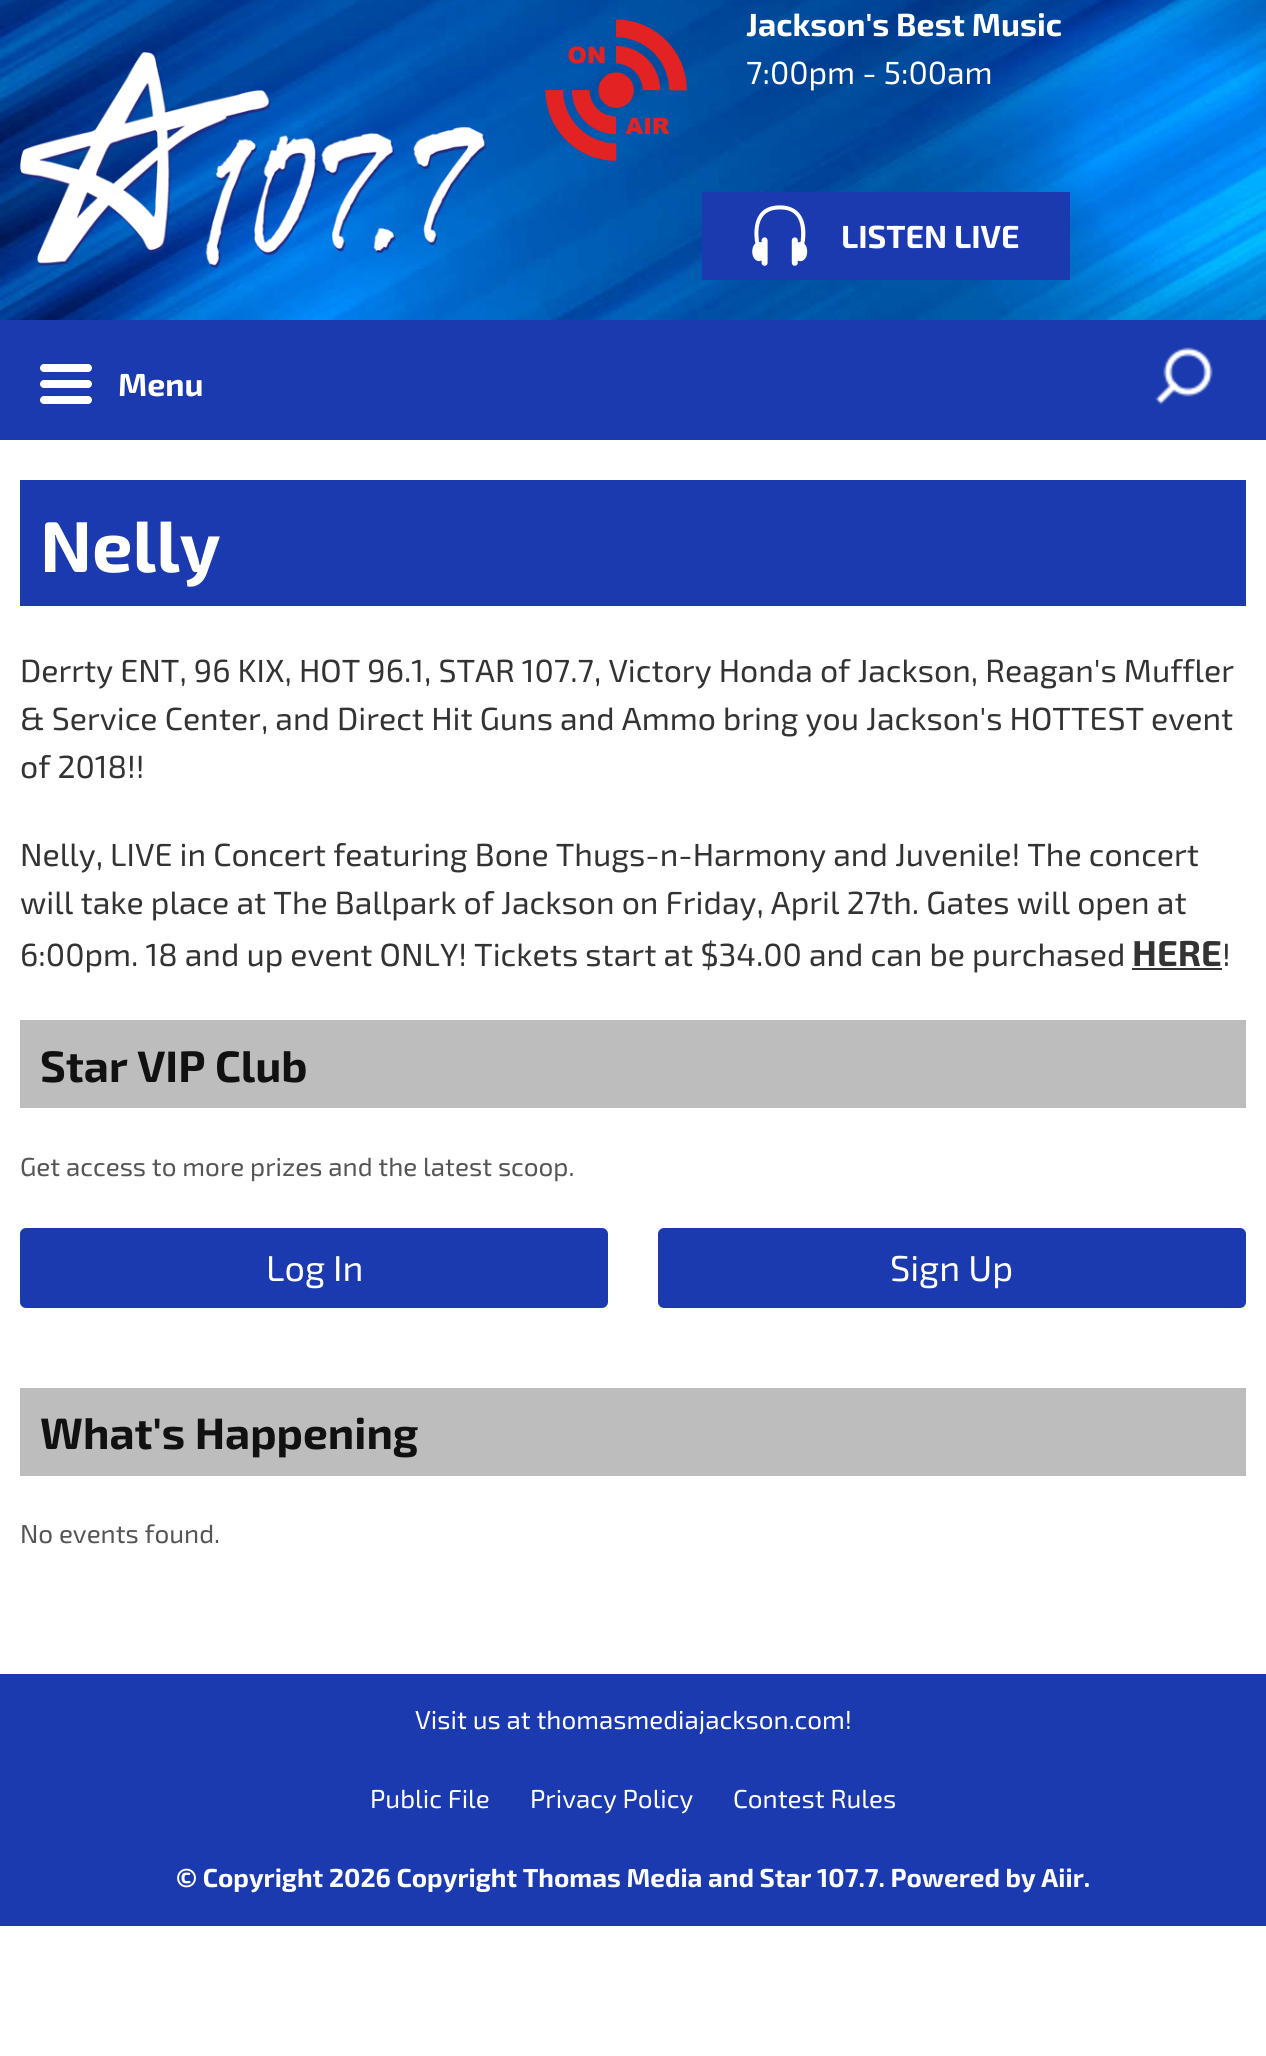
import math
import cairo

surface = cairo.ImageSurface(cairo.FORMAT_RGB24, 1266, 2056)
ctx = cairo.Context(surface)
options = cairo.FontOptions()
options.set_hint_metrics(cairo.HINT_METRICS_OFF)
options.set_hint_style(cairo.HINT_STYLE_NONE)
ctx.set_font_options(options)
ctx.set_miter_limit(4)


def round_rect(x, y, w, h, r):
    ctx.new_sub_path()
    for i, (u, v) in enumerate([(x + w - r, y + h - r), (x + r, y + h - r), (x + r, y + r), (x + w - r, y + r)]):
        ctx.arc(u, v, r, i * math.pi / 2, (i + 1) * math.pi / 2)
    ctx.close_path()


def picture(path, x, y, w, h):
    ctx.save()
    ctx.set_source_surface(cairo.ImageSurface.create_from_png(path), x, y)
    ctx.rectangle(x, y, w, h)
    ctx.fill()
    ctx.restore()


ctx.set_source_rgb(1, 1, 1)
ctx.paint()
picture("img1.png", 0, 0, 1266, 320)
picture("img2.png", 20, 52, 466, 216)
picture("img3.png", 545, 19, 143, 143)
ctx.select_font_face("Exo 2", cairo.FONT_SLANT_NORMAL, cairo.FONT_WEIGHT_BOLD)
ctx.set_font_size(32)
ctx.set_source_rgb(1, 1, 1)
ctx.move_to(746, 36)
ctx.show_text("Jackson's Best Music")
ctx.select_font_face("Exo 2")
ctx.move_to(746, 84)
ctx.show_text("7:00pm - 5:00am")
ctx.set_source_rgb(0.11, 0.227, 0.69)
ctx.rectangle(702, 192, 368, 88)
ctx.fill()
picture("img4.png", 752, 205, 56, 61)
ctx.select_font_face("Exo 2", cairo.FONT_SLANT_NORMAL, cairo.FONT_WEIGHT_BOLD)
ctx.set_source_rgb(1, 1, 1)
ctx.move_to(841, 248)
ctx.show_text("LISTEN LIVE")
ctx.set_source_rgb(0.11, 0.227, 0.69)
ctx.rectangle(0, 320, 1266, 120)
ctx.fill()
ctx.set_source_rgb(1, 1, 1)
round_rect(40, 364, 52, 8, 4)
ctx.fill()
round_rect(40, 380, 52, 8, 4)
ctx.fill()
round_rect(40, 396, 52, 8, 4)
ctx.fill()
ctx.move_to(118, 396)
ctx.show_text("Menu")
picture("img5.png", 1155, 347, 58, 58)
ctx.set_source_rgb(0.11, 0.227, 0.69)
ctx.rectangle(20, 480, 1226, 126)
ctx.fill()
ctx.set_font_size(72)
ctx.set_source_rgb(1, 1, 1)
ctx.move_to(40, 572)
ctx.show_text("Nelly")
ctx.select_font_face("Exo 2")
ctx.set_font_size(32)
ctx.set_source_rgb(0.2, 0.2, 0.2)
ctx.move_to(20, 682)
ctx.show_text("Derrty ENT, 96 KIX, HOT 96.1, STAR 107.7, Victory Honda of Jackson, Reagan's Muffler")
ctx.move_to(20, 730)
ctx.show_text("& Service Center, and Direct Hit Guns and Ammo bring you Jackson's HOTTEST event")
ctx.move_to(20, 778)
ctx.show_text("of 2018!!")
ctx.move_to(20, 866)
ctx.show_text("Nelly, LIVE in Concert featuring Bone Thugs-n-Harmony and Juvenile! The concert")
ctx.move_to(20, 914)
ctx.show_text("will take place at The Ballpark of Jackson on Friday, April 27th. Gates will open at")
ctx.move_to(20, 966)
ctx.show_text("6:00pm. 18 and up event ONLY! Tickets start at $34.00 and can be purchased")
ctx.select_font_face("Exo 2", cairo.FONT_SLANT_NORMAL, cairo.FONT_WEIGHT_BOLD)
ctx.set_font_size(36)
ctx.move_to(1132, 966)
ctx.show_text("HERE")
ctx.rectangle(1132, 968, 90, 2)
ctx.fill()
ctx.select_font_face("Exo 2")
ctx.set_font_size(32)
ctx.move_to(1222, 966)
ctx.show_text("!")
ctx.set_source_rgb(0.741, 0.741, 0.741)
ctx.rectangle(20, 1020, 1226, 88)
ctx.fill()
ctx.select_font_face("Exo 2", cairo.FONT_SLANT_NORMAL, cairo.FONT_WEIGHT_BOLD)
ctx.set_font_size(44)
ctx.set_source_rgb(0.067, 0.067, 0.067)
ctx.move_to(40, 1082)
ctx.show_text("Star VIP Club")
ctx.select_font_face("Exo 2")
ctx.set_font_size(26)
ctx.set_source_rgb(0.333, 0.333, 0.333)
ctx.move_to(20, 1176)
ctx.show_text("Get access to more prizes and the latest scoop.")
ctx.set_source_rgb(0.11, 0.227, 0.69)
round_rect(20, 1228, 588, 80, 6)
ctx.fill()
ctx.set_font_size(36)
ctx.set_source_rgb(1, 1, 1)
ctx.move_to(266, 1281)
ctx.show_text("Log In")
ctx.set_source_rgb(0.11, 0.227, 0.69)
round_rect(658, 1228, 588, 80, 6)
ctx.fill()
ctx.set_source_rgb(1, 1, 1)
ctx.move_to(890, 1281)
ctx.show_text("Sign Up")
ctx.set_source_rgb(0.741, 0.741, 0.741)
ctx.rectangle(20, 1388, 1226, 88)
ctx.fill()
ctx.select_font_face("Exo 2", cairo.FONT_SLANT_NORMAL, cairo.FONT_WEIGHT_BOLD)
ctx.set_font_size(44)
ctx.set_source_rgb(0.067, 0.067, 0.067)
ctx.move_to(40, 1449)
ctx.show_text("What's Happening")
ctx.select_font_face("Exo 2")
ctx.set_font_size(26)
ctx.set_source_rgb(0.333, 0.333, 0.333)
ctx.move_to(20, 1543)
ctx.show_text("No events found.")
ctx.set_source_rgb(0.11, 0.227, 0.69)
ctx.rectangle(0, 1674, 1266, 252)
ctx.fill()
ctx.set_source_rgb(1, 1, 1)
ctx.move_to(415, 1729)
ctx.show_text("Visit us at thomasmediajackson.com!")
ctx.move_to(370, 1808)
ctx.show_text("Public File")
ctx.move_to(530, 1808)
ctx.show_text("Privacy Policy")
ctx.move_to(733, 1808)
ctx.show_text("Contest Rules")
ctx.select_font_face("Exo 2", cairo.FONT_SLANT_NORMAL, cairo.FONT_WEIGHT_BOLD)
ctx.move_to(176, 1887)
ctx.show_text("© Copyright 2026 Copyright Thomas Media and Star 107.7. Powered by Aiir.")
surface.write_to_png("page.png")
